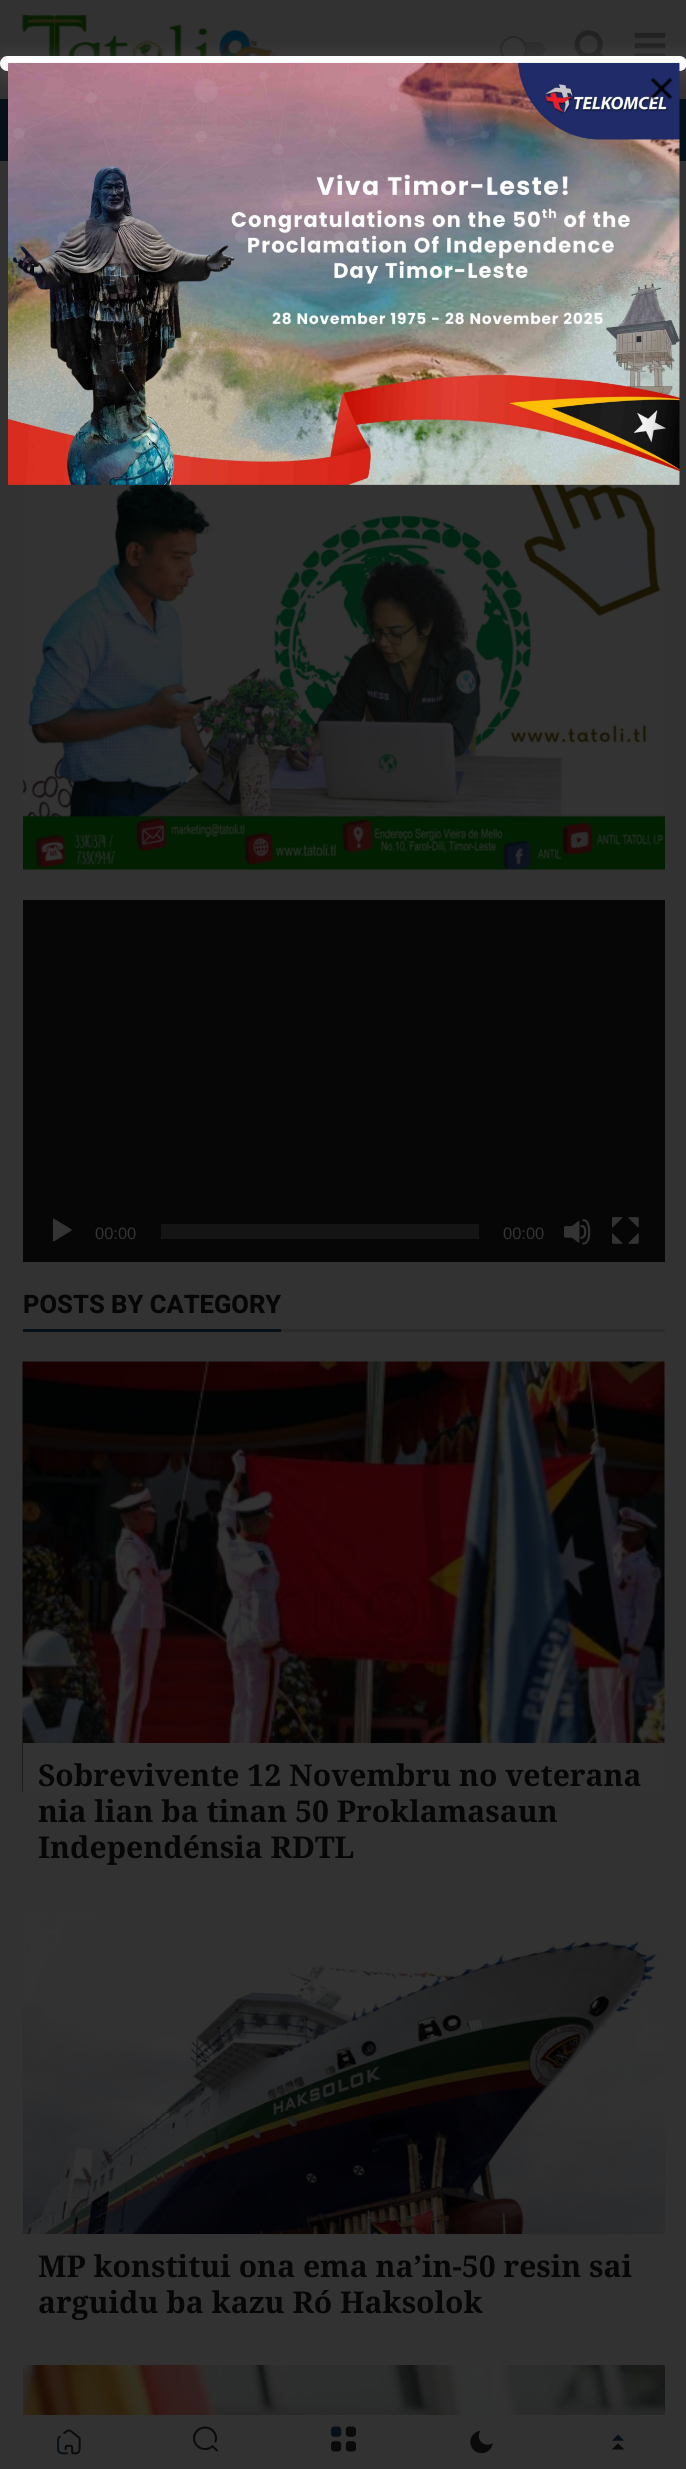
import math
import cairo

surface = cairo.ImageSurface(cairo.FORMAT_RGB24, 686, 2469)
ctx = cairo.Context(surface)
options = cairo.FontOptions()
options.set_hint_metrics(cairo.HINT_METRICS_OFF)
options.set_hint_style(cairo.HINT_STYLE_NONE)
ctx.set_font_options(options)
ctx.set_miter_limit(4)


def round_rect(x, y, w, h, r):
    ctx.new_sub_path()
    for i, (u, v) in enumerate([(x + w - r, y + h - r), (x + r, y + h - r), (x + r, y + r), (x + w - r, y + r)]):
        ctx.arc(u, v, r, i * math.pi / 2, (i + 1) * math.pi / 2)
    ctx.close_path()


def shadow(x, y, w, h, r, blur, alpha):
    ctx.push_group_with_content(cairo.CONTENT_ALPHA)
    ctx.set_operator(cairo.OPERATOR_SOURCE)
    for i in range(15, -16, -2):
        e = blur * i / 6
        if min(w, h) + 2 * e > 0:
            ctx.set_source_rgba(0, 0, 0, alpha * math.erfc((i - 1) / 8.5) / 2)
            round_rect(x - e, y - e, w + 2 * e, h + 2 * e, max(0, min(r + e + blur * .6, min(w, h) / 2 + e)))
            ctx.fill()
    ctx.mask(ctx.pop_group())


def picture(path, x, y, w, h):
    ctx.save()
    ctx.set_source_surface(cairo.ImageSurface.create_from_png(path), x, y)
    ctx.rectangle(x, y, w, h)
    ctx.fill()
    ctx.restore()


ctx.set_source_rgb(0.2, 0.196, 0.196)
ctx.paint()
picture("img3.png", 22, 15, 257, 41)
ctx.set_source_rgb(0.169, 0.169, 0.169)
round_rect(500, 42, 45, 15, 7.5)
ctx.fill()
ctx.set_source_rgb(0.2, 0.2, 0.2)
ctx.arc(513.5, 49.5, 13.5, 0, 2 * math.pi)
ctx.fill()
ctx.arc(513.5, 49.5, 12.5, 0, 2 * math.pi)
ctx.set_source_rgba(0.035, 0.082, 0.035, 0.34)
ctx.stroke()
picture("img4.png", 574, 30, 30, 26)
picture("img5.png", 634, 32, 32, 24)
ctx.set_source_rgb(0.027, 0.063, 0.094)
ctx.rectangle(0, 99, 686, 62)
ctx.fill()
ctx.set_source_rgb(0.337, 0.333, 0.333)
shadow(-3, 53, 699, 27, 13.5, 7.5, 0.39)
ctx.set_source_rgb(1, 1, 1)
round_rect(0, 56, 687, 15, 7.5)
ctx.fill()
picture("img6.png", 23, 484, 642, 386)
picture("img1.png", 8, 62, 672, 423)
picture("img2.png", 650, 77, 23, 23)
ctx.set_source_rgb(0.027, 0.027, 0.027)
ctx.rectangle(23, 900, 642, 362)
ctx.fill()
picture("img7.png", 52, 1218, 20, 24)
ctx.select_font_face("Liberation Sans")
ctx.set_font_size(16.5)
ctx.set_source_rgb(0.2, 0.2, 0.2)
ctx.move_to(95, 1239)
ctx.show_text("00:00")
ctx.set_source_rgb(0.082, 0.082, 0.082)
ctx.rectangle(161, 1224, 318, 15)
ctx.fill()
ctx.set_source_rgb(0.2, 0.2, 0.2)
ctx.move_to(503, 1239)
ctx.show_text("00:00")
picture("img8.png", 564, 1219, 27, 26)
picture("img9.png", 612, 1217, 27, 27)
ctx.set_source_rgb(0.169, 0.169, 0.169)
ctx.rectangle(281, 1329, 384, 3)
ctx.fill()
ctx.set_source_rgb(0.027, 0.063, 0.094)
ctx.rectangle(23, 1329, 258, 3)
ctx.fill()
ctx.select_font_face("Roboto ExtraBold")
ctx.set_font_size(25.5)
ctx.set_source_rgb(0.027, 0.027, 0.027)
ctx.move_to(23, 1313)
ctx.show_text("POSTS BY CATEGORY")
ctx.set_source_rgb(0.188, 0.188, 0.188)
ctx.rectangle(664, 1362, 1, 381)
ctx.fill()
picture("img10.png", 22, 1361, 643, 431)
ctx.set_source_rgb(0.2, 0.2, 0.2)
ctx.rectangle(23, 1743, 642, 49)
ctx.fill()
ctx.select_font_face("Noto Serif", cairo.FONT_SLANT_NORMAL, cairo.FONT_WEIGHT_BOLD)
ctx.set_font_size(30)
ctx.set_source_rgb(0.027, 0.027, 0.027)
ctx.move_to(38, 1786)
ctx.show_text("Sobrevivente 12 Novembru no veterana")
ctx.move_to(38, 1822)
ctx.show_text("nia lian ba tinan 50 Proklamasaun")
ctx.move_to(38, 1858)
ctx.show_text("Independénsia RDTL")
picture("img11.png", 23, 1911, 642, 323)
ctx.move_to(38, 2277)
ctx.show_text("MP konstitui ona ema na’in-50 resin sai")
ctx.move_to(38, 2313)
ctx.show_text("arguidu ba kazu Ró Haksolok")
picture("img12.png", 23, 2365, 642, 50)
picture("img13.png", 57, 2429, 24, 26)
picture("img14.png", 193, 2426, 25, 26)
picture("img15.png", 331, 2426, 25, 26)
picture("img16.png", 470, 2430, 23, 24)
picture("img17.png", 611, 2434, 14, 16)
surface.write_to_png("page.png")
